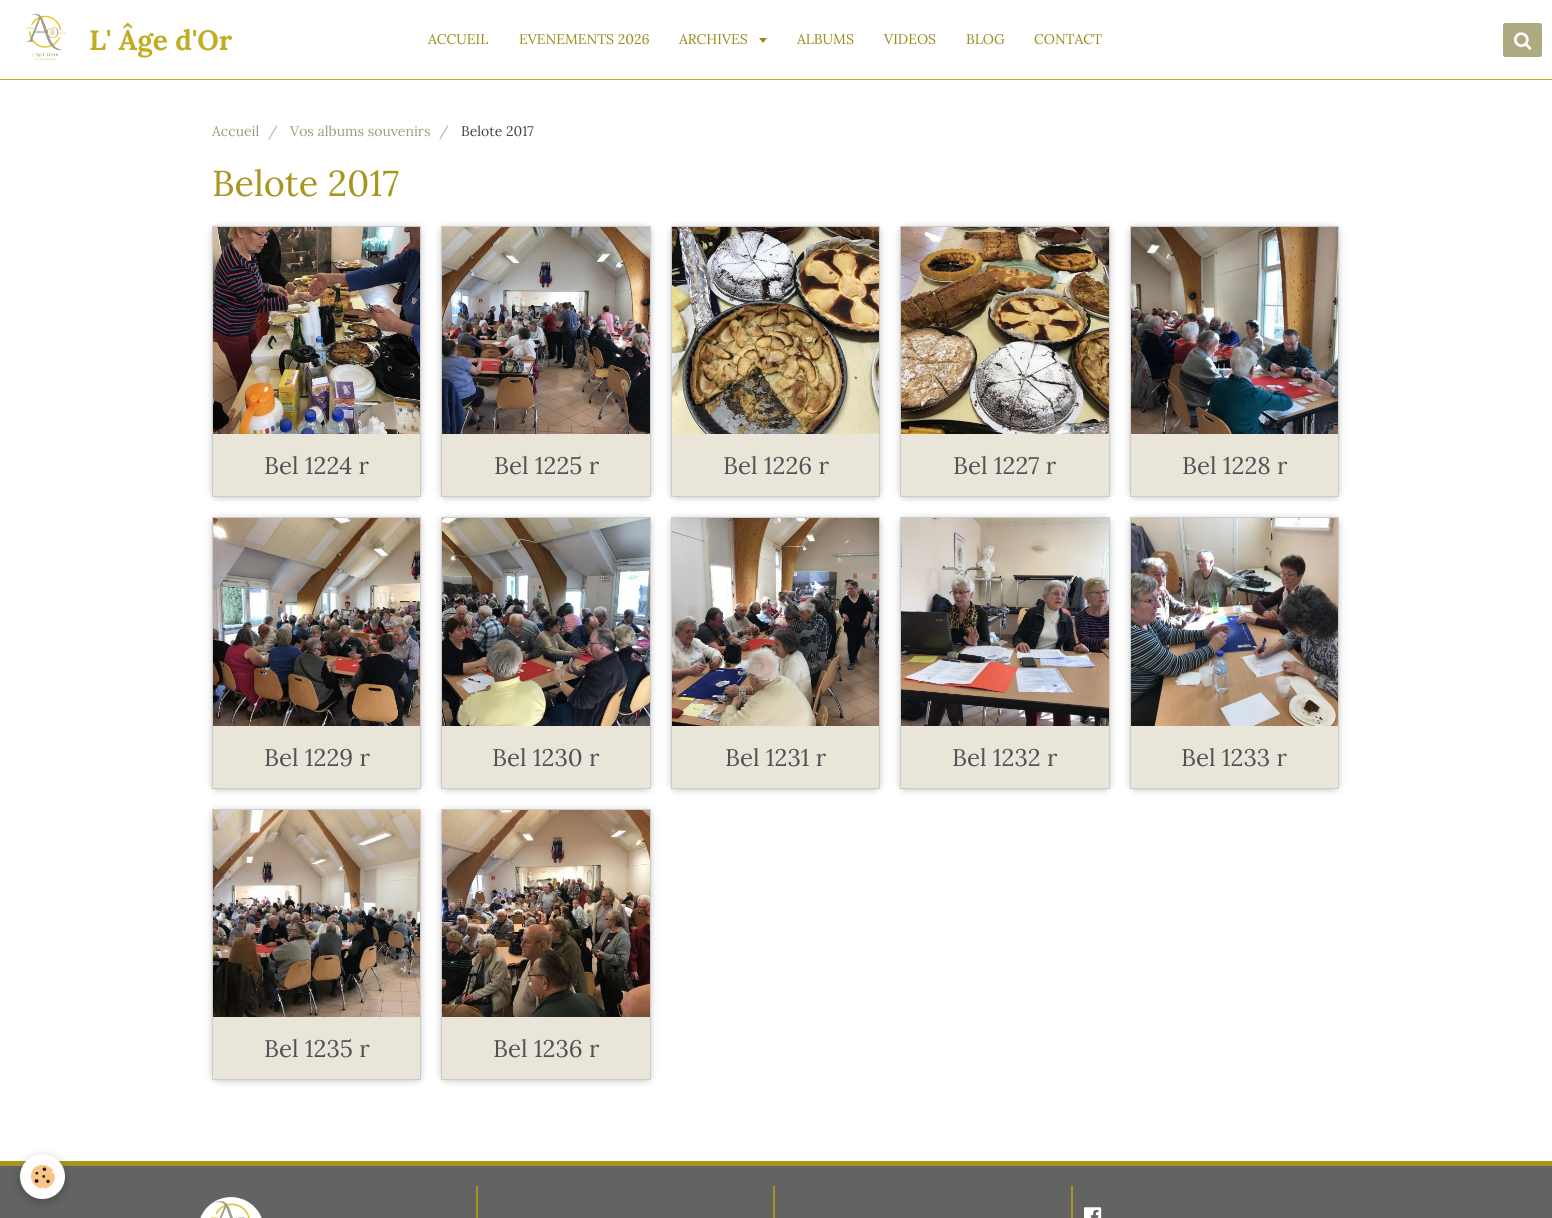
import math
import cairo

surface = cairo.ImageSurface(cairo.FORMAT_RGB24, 1552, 1218)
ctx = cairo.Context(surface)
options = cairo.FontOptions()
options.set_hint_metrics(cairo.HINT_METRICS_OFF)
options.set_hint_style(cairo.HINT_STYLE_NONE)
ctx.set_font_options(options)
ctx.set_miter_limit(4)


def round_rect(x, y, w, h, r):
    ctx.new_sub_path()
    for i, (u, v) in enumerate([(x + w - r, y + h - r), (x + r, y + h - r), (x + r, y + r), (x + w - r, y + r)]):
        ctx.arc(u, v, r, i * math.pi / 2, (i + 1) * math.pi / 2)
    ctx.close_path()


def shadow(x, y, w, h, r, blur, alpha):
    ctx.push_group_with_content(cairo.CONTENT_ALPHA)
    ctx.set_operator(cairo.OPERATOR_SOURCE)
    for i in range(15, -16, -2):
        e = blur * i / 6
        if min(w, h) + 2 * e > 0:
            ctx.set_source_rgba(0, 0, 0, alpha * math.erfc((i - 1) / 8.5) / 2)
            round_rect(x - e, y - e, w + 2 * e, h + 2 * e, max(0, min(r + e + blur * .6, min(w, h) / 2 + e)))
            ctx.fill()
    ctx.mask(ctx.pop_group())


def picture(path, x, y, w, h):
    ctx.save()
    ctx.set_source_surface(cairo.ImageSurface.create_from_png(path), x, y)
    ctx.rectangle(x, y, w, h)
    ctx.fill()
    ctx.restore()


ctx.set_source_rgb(1, 1, 1)
ctx.paint()
ctx.set_source_rgb(0.757, 0.678, 0.133)
ctx.rectangle(0, 79, 1552, 1)
ctx.fill()
picture("img1.png", 26, 13, 40, 47)
ctx.select_font_face("Lora", cairo.FONT_SLANT_NORMAL, cairo.FONT_WEIGHT_BOLD)
ctx.set_font_size(28)
ctx.move_to(89, 50)
ctx.show_text("L' Âge d'Or")
ctx.select_font_face("Lora")
ctx.set_font_size(14)
ctx.set_source_rgb(0.6, 0.541, 0.106)
ctx.move_to(428, 44)
ctx.show_text("ACCUEIL")
ctx.move_to(519, 44)
ctx.show_text("EVENEMENTS 2026")
ctx.move_to(679, 44)
ctx.show_text("ARCHIVES")
ctx.new_path()
ctx.move_to(759, 38)
ctx.line_to(767, 38)
ctx.line_to(763, 43)
ctx.close_path()
ctx.fill()
ctx.move_to(797, 44)
ctx.show_text("ALBUMS")
ctx.move_to(884, 44)
ctx.show_text("VIDEOS")
ctx.move_to(966, 44)
ctx.show_text("BLOG")
ctx.move_to(1034, 44)
ctx.show_text("CONTACT")
ctx.set_source_rgb(0.678, 0.667, 0.51)
round_rect(1503, 23, 39, 34, 2.5)
ctx.fill()
picture("img2.png", 1514, 32, 18, 18)
ctx.set_source_rgb(0.592, 0.631, 0.506)
ctx.move_to(212, 136)
ctx.show_text("Accueil")
ctx.set_source_rgb(0.675, 0.675, 0.675)
ctx.move_to(268, 136)
ctx.show_text("/")
ctx.set_source_rgb(0.592, 0.631, 0.506)
ctx.move_to(290, 136)
ctx.show_text("Vos albums souvenirs")
ctx.set_source_rgb(0.675, 0.675, 0.675)
ctx.move_to(439, 136)
ctx.show_text("/")
ctx.set_source_rgb(0.267, 0.267, 0.267)
ctx.move_to(461, 136)
ctx.show_text("Belote 2017")
ctx.set_font_size(36)
ctx.set_source_rgb(0.655, 0.588, 0.118)
ctx.move_to(212, 196)
ctx.show_text("Belote 2017")
ctx.set_source_rgb(0.267, 0.267, 0.267)
shadow(217, 232, 199, 261, 0, 5, 1)
ctx.set_source_rgb(0.914, 0.898, 0.851)
ctx.rectangle(213, 434, 207, 62)
ctx.fill()
ctx.rectangle(212.5, 226.5, 208, 270)
ctx.set_source_rgb(0.8, 0.8, 0.8)
ctx.set_line_width(1)
ctx.stroke()
picture("img3.png", 213, 227, 207, 207)
ctx.set_font_size(24)
ctx.set_source_rgb(0.329, 0.322, 0.341)
ctx.move_to(264, 474)
ctx.show_text("Bel 1224 r")
ctx.set_source_rgb(0.267, 0.267, 0.267)
shadow(446, 232, 200, 261, 0, 5, 1)
ctx.set_source_rgb(0.914, 0.898, 0.851)
ctx.rectangle(442, 434, 208, 62)
ctx.fill()
ctx.rectangle(441.5, 226.5, 209, 270)
ctx.set_source_rgb(0.8, 0.8, 0.8)
ctx.stroke()
picture("img4.png", 442, 227, 208, 207)
ctx.set_source_rgb(0.329, 0.322, 0.341)
ctx.move_to(494, 474)
ctx.show_text("Bel 1225 r")
ctx.set_source_rgb(0.267, 0.267, 0.267)
shadow(676, 232, 199, 261, 0, 5, 1)
ctx.set_source_rgb(0.914, 0.898, 0.851)
ctx.rectangle(672, 434, 207, 62)
ctx.fill()
ctx.rectangle(671.5, 226.5, 208, 270)
ctx.set_source_rgb(0.8, 0.8, 0.8)
ctx.stroke()
picture("img5.png", 672, 227, 207, 207)
ctx.set_source_rgb(0.329, 0.322, 0.341)
ctx.move_to(723, 474)
ctx.show_text("Bel 1226 r")
ctx.set_source_rgb(0.267, 0.267, 0.267)
shadow(905, 232, 200, 261, 0, 5, 1)
ctx.set_source_rgb(0.914, 0.898, 0.851)
ctx.rectangle(901, 434, 208, 62)
ctx.fill()
ctx.rectangle(900.5, 226.5, 209, 270)
ctx.set_source_rgb(0.8, 0.8, 0.8)
ctx.stroke()
picture("img6.png", 901, 227, 208, 207)
ctx.set_source_rgb(0.329, 0.322, 0.341)
ctx.move_to(953, 474)
ctx.show_text("Bel 1227 r")
ctx.set_source_rgb(0.267, 0.267, 0.267)
shadow(1135, 232, 199, 261, 0, 5, 1)
ctx.set_source_rgb(0.914, 0.898, 0.851)
ctx.rectangle(1130.5, 226.5, 208, 270)
ctx.fill_preserve()
ctx.set_source_rgb(0.8, 0.8, 0.8)
ctx.stroke()
picture("img7.png", 1131, 227, 207, 207)
ctx.set_source_rgb(0.329, 0.322, 0.341)
ctx.move_to(1182, 474)
ctx.show_text("Bel 1228 r")
ctx.set_source_rgb(0.267, 0.267, 0.267)
shadow(217, 523, 199, 262, 0, 5, 1)
ctx.set_source_rgb(0.914, 0.898, 0.851)
ctx.rectangle(213, 726, 207, 62)
ctx.fill()
ctx.rectangle(212.5, 517.5, 208, 271)
ctx.set_source_rgb(0.8, 0.8, 0.8)
ctx.stroke()
picture("img8.png", 213, 518, 207, 208)
ctx.set_source_rgb(0.329, 0.322, 0.341)
ctx.move_to(264, 766)
ctx.show_text("Bel 1229 r")
ctx.set_source_rgb(0.267, 0.267, 0.267)
shadow(446, 523, 200, 262, 0, 5, 1)
ctx.set_source_rgb(0.914, 0.898, 0.851)
ctx.rectangle(442, 726, 208, 62)
ctx.fill()
ctx.rectangle(441.5, 517.5, 209, 271)
ctx.set_source_rgb(0.8, 0.8, 0.8)
ctx.stroke()
picture("img9.png", 442, 518, 208, 208)
ctx.set_source_rgb(0.329, 0.322, 0.341)
ctx.move_to(492, 766)
ctx.show_text("Bel 1230 r")
ctx.set_source_rgb(0.267, 0.267, 0.267)
shadow(676, 523, 199, 262, 0, 5, 1)
ctx.set_source_rgb(0.914, 0.898, 0.851)
ctx.rectangle(672, 726, 207, 62)
ctx.fill()
ctx.rectangle(671.5, 517.5, 208, 271)
ctx.set_source_rgb(0.8, 0.8, 0.8)
ctx.stroke()
picture("img10.png", 672, 518, 207, 208)
ctx.set_source_rgb(0.329, 0.322, 0.341)
ctx.move_to(725, 766)
ctx.show_text("Bel 1231 r")
ctx.set_source_rgb(0.267, 0.267, 0.267)
shadow(905, 523, 200, 262, 0, 5, 1)
ctx.set_source_rgb(0.914, 0.898, 0.851)
ctx.rectangle(901, 726, 208, 62)
ctx.fill()
ctx.rectangle(900.5, 517.5, 209, 271)
ctx.set_source_rgb(0.8, 0.8, 0.8)
ctx.stroke()
picture("img11.png", 901, 518, 208, 208)
ctx.set_source_rgb(0.329, 0.322, 0.341)
ctx.move_to(952, 766)
ctx.show_text("Bel 1232 r")
ctx.set_source_rgb(0.267, 0.267, 0.267)
shadow(1135, 523, 199, 262, 0, 5, 1)
ctx.set_source_rgb(0.914, 0.898, 0.851)
ctx.rectangle(1130.5, 517.5, 208, 271)
ctx.fill_preserve()
ctx.set_source_rgb(0.8, 0.8, 0.8)
ctx.stroke()
picture("img12.png", 1131, 518, 207, 208)
ctx.set_source_rgb(0.329, 0.322, 0.341)
ctx.move_to(1181, 766)
ctx.show_text("Bel 1233 r")
ctx.set_source_rgb(0.267, 0.267, 0.267)
shadow(217, 815, 199, 261, 0, 5, 1)
ctx.set_source_rgb(0.914, 0.898, 0.851)
ctx.rectangle(213, 1017, 207, 62)
ctx.fill()
ctx.rectangle(212.5, 809.5, 208, 270)
ctx.set_source_rgb(0.8, 0.8, 0.8)
ctx.stroke()
picture("img13.png", 213, 810, 207, 207)
ctx.set_source_rgb(0.329, 0.322, 0.341)
ctx.move_to(264, 1057)
ctx.show_text("Bel 1235 r")
ctx.set_source_rgb(0.267, 0.267, 0.267)
shadow(446, 815, 200, 261, 0, 5, 1)
ctx.set_source_rgb(0.914, 0.898, 0.851)
ctx.rectangle(442, 1017, 208, 62)
ctx.fill()
ctx.rectangle(441.5, 809.5, 209, 270)
ctx.set_source_rgb(0.8, 0.8, 0.8)
ctx.stroke()
picture("img14.png", 442, 810, 208, 207)
ctx.set_source_rgb(0.329, 0.322, 0.341)
ctx.move_to(493, 1057)
ctx.show_text("Bel 1236 r")
ctx.set_source_rgb(0.655, 0.588, 0.118)
ctx.rectangle(0, 1161, 1552, 5)
ctx.fill()
ctx.set_source_rgb(0.388, 0.388, 0.38)
ctx.rectangle(0, 1166, 1552, 52)
ctx.fill()
ctx.set_source_rgb(0, 0, 0)
shadow(20, 1157, 45, 45, 22.5, 5, 0.24)
ctx.set_source_rgb(1, 1, 1)
ctx.arc(42.5, 1176.5, 22.5, 0, 2 * math.pi)
ctx.fill()
picture("img15.png", 30, 1164, 25, 25)
picture("img16.png", 200, 1197, 62, 21)
ctx.set_source_rgb(0.655, 0.588, 0.118)
ctx.rectangle(476, 1186, 2, 32)
ctx.fill()
ctx.rectangle(773, 1186, 2, 32)
ctx.fill()
ctx.rectangle(1071, 1186, 2, 32)
ctx.fill()
picture("img17.png", 1084, 1207, 18, 11)
surface.write_to_png("page.png")
